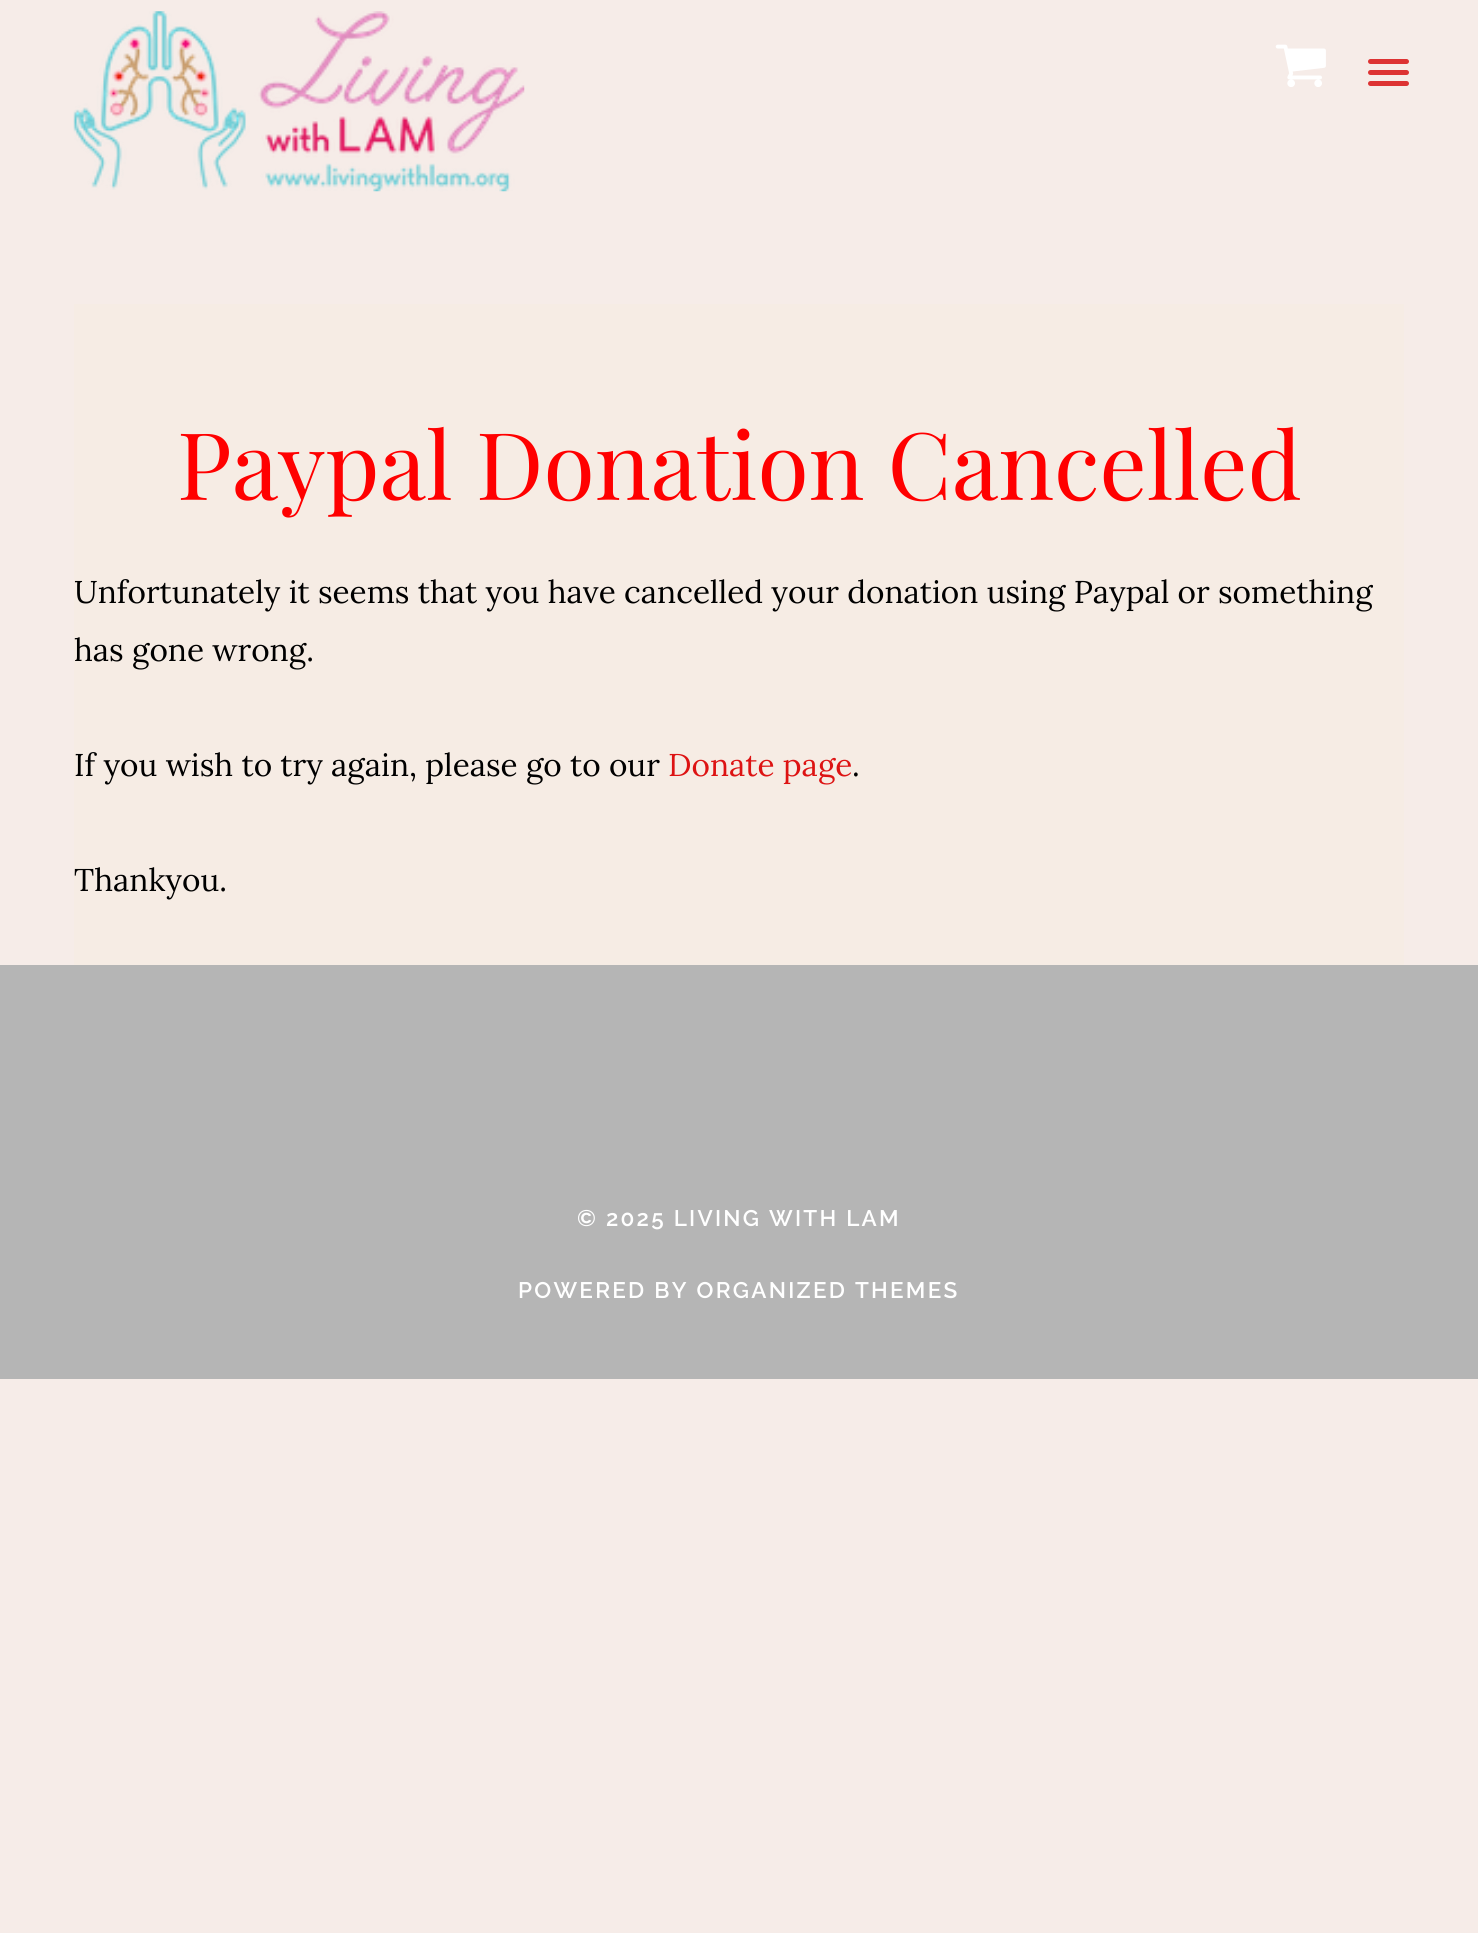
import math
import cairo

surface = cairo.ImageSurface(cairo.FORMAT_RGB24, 1478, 1933)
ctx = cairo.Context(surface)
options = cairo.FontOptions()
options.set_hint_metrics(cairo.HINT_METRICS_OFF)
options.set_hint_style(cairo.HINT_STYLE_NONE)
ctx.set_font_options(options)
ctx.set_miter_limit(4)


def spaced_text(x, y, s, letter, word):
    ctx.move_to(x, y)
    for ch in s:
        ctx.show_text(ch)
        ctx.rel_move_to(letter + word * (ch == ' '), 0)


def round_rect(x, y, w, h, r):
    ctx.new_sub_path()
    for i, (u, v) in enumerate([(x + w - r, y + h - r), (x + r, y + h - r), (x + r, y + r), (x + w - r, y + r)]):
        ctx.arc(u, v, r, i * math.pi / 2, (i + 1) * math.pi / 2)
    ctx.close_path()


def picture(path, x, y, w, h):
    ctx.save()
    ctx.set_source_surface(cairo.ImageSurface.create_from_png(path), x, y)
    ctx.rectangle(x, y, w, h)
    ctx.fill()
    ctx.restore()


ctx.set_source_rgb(0.961, 0.922, 0.91)
ctx.paint()
picture("img1.png", 73, 11, 452, 181)
picture("img2.png", 1275, 44, 51, 43)
ctx.set_source_rgb(0.867, 0.2, 0.2)
round_rect(1368, 59, 41, 5, 2.5)
ctx.fill()
round_rect(1368, 70, 41, 5, 2.5)
ctx.fill()
round_rect(1368, 81, 41, 5, 2.5)
ctx.fill()
ctx.set_source_rgb(0.961, 0.922, 0.894)
ctx.rectangle(74, 304, 1330, 661)
ctx.fill()
ctx.select_font_face("Playfair Display")
ctx.set_font_size(93.4)
ctx.set_source_rgb(1, 0, 0)
ctx.move_to(177, 500)
ctx.show_text("Paypal Donation Cancelled")
ctx.select_font_face("Lora")
ctx.set_font_size(31.5)
ctx.set_source_rgb(0, 0, 0)
ctx.move_to(74, 603)
ctx.show_text("Unfortunately it seems that you have cancelled your donation using Paypal or something")
ctx.move_to(74, 661)
ctx.show_text("has gone wrong.")
ctx.move_to(74, 776)
ctx.show_text("If you wish to try again, please go to our")
ctx.set_source_rgb(0.867, 0.075, 0.075)
ctx.move_to(668, 776)
ctx.show_text("Donate page")
ctx.set_source_rgb(0, 0, 0)
ctx.move_to(852, 776)
ctx.show_text(".")
ctx.move_to(74, 891)
ctx.show_text("Thankyou.")
ctx.set_source_rgb(0.71, 0.71, 0.71)
ctx.rectangle(0, 965, 1478, 414)
ctx.fill()
ctx.select_font_face("Raleway SemiBold")
ctx.set_font_size(22.5)
ctx.set_source_rgb(1, 1, 1)
spaced_text(577, 1226, "© 2025 LIVING WITH LAM", 2.25, 0)
spaced_text(518, 1298, "POWERED BY ORGANIZED THEMES", 2.25, 0)
surface.write_to_png("page.png")
